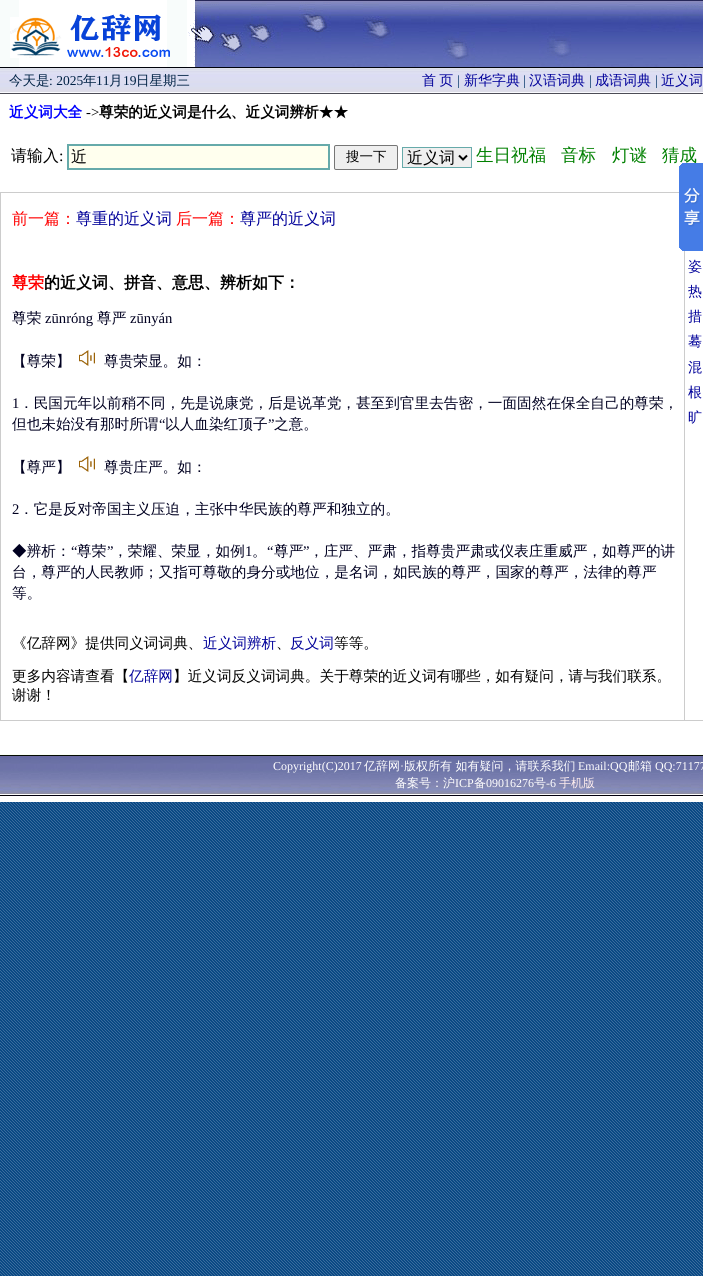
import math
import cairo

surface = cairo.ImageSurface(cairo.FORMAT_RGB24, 703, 1276)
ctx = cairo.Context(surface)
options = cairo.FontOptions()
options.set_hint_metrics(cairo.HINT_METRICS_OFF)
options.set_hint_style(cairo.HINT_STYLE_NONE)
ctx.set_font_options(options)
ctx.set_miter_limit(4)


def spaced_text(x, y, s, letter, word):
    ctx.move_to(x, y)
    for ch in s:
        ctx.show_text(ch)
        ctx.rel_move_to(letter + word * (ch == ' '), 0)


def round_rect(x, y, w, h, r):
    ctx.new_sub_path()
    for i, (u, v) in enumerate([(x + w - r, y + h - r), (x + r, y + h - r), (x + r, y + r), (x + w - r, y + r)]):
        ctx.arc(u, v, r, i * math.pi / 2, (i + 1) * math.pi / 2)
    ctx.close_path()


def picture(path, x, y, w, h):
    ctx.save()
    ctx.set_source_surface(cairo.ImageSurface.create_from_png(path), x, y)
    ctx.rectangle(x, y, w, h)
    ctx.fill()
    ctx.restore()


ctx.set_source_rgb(1, 1, 1)
ctx.paint()
picture("img1.png", 0, 802, 703, 474)
picture("img2.png", 0, 0, 187, 67)
picture("img3.png", 188, 0, 515, 67)
picture("img4.png", 0, 67, 248, 27)
ctx.select_font_face("WenQuanYi Zen Hei Medium")
ctx.set_font_size(13.5)
ctx.set_source_rgb(0, 0.133, 0.267)
ctx.move_to(9, 85)
ctx.show_text("今天是")
ctx.select_font_face("Liberation Serif")
ctx.move_to(49, 85)
ctx.show_text(": 2025")
ctx.select_font_face("WenQuanYi Zen Hei Medium")
ctx.move_to(83, 85)
ctx.show_text("年")
ctx.select_font_face("Liberation Serif")
ctx.move_to(96, 85)
ctx.show_text("11")
ctx.select_font_face("WenQuanYi Zen Hei Medium")
ctx.move_to(109, 85)
ctx.show_text("月")
ctx.select_font_face("Liberation Serif")
ctx.move_to(123, 85)
ctx.show_text("19")
ctx.select_font_face("WenQuanYi Zen Hei Medium")
ctx.move_to(136, 85)
ctx.show_text("日星期三")
picture("img5.png", 248, 67, 455, 27)
ctx.set_font_size(14)
ctx.set_source_rgb(0, 0, 0.6)
spaced_text(422, 85, "首 页", 0, -1)
ctx.select_font_face("Liberation Serif")
ctx.set_source_rgb(0, 0.2, 0.4)
ctx.move_to(457, 85)
ctx.show_text("|")
ctx.select_font_face("WenQuanYi Zen Hei Medium")
ctx.set_source_rgb(0, 0, 0.6)
ctx.move_to(464, 85)
ctx.show_text("新华字典")
ctx.select_font_face("Liberation Serif")
ctx.set_source_rgb(0, 0.2, 0.4)
ctx.move_to(523, 85)
ctx.show_text("|")
ctx.select_font_face("WenQuanYi Zen Hei Medium")
ctx.set_source_rgb(0, 0, 0.6)
ctx.move_to(529, 85)
ctx.show_text("汉语词典")
ctx.select_font_face("Liberation Serif")
ctx.set_source_rgb(0, 0.2, 0.4)
ctx.move_to(589, 85)
ctx.show_text("|")
ctx.select_font_face("WenQuanYi Zen Hei Medium")
ctx.set_source_rgb(0, 0, 0.6)
ctx.move_to(595, 85)
ctx.show_text("成语词典")
ctx.select_font_face("Liberation Serif")
ctx.set_source_rgb(0, 0.2, 0.4)
ctx.move_to(655, 85)
ctx.show_text("|")
ctx.select_font_face("WenQuanYi Zen Hei Medium")
ctx.set_source_rgb(0, 0, 0.6)
ctx.move_to(661, 85)
ctx.show_text("近义词")
ctx.select_font_face("WenQuanYi Zen Hei", cairo.FONT_SLANT_NORMAL, cairo.FONT_WEIGHT_BOLD)
ctx.set_font_size(14.65)
ctx.set_source_rgb(0, 0, 1)
ctx.move_to(9, 117)
ctx.show_text("近义词大全")
ctx.select_font_face("Liberation Serif")
ctx.set_source_rgb(0, 0, 0)
ctx.move_to(86, 117)
ctx.show_text("->")
ctx.select_font_face("WenQuanYi Zen Hei", cairo.FONT_SLANT_NORMAL, cairo.FONT_WEIGHT_BOLD)
ctx.move_to(99, 117)
ctx.show_text("尊荣的近义词是什么、近义词辨析★★")
ctx.select_font_face("WenQuanYi Zen Hei Medium")
ctx.set_font_size(16)
ctx.move_to(11, 161)
ctx.show_text("请输入")
ctx.select_font_face("Liberation Serif")
ctx.move_to(59, 161)
ctx.show_text(":")
ctx.set_source_rgb(1, 1, 0.933)
ctx.rectangle(68, 145, 261, 24)
ctx.fill_preserve()
ctx.set_source_rgb(0.4, 0.667, 0.667)
ctx.stroke()
ctx.select_font_face("WenQuanYi Zen Hei Medium")
ctx.set_source_rgb(0, 0, 0)
ctx.move_to(71, 162)
ctx.show_text("近")
ctx.set_source_rgb(0.937, 0.937, 0.937)
round_rect(334.5, 145.5, 63, 24, 1.5)
ctx.fill_preserve()
ctx.set_source_rgb(0.463, 0.463, 0.463)
ctx.set_line_width(1)
ctx.stroke()
ctx.set_font_size(13.5)
ctx.set_source_rgb(0, 0, 0)
ctx.move_to(346, 161)
ctx.show_text("搜一下")
ctx.set_source_rgb(0.937, 0.937, 0.937)
ctx.rectangle(402.5, 147.5, 69, 20)
ctx.fill_preserve()
ctx.set_source_rgb(0.4, 0.667, 0.667)
ctx.stroke()
ctx.new_path()
ctx.move_to(459, 155.5)
ctx.line_to(463, 159.5)
ctx.line_to(467, 155.5)
ctx.set_source_rgb(0, 0, 0)
ctx.set_line_width(2)
ctx.stroke()
ctx.set_font_size(16)
ctx.move_to(407, 163)
ctx.show_text("近义词")
ctx.set_font_size(17.5)
ctx.set_source_rgb(0, 0.502, 0)
ctx.move_to(476, 161)
ctx.show_text("生日祝福")
ctx.move_to(561, 161)
ctx.show_text("音标")
ctx.move_to(612, 161)
ctx.show_text("灯谜")
ctx.move_to(662, 161)
ctx.show_text("猜成")
ctx.set_source_rgb(0.8, 0.8, 0.8)
ctx.rectangle(0, 192, 679, 1)
ctx.fill()
ctx.rectangle(0, 720, 703, 1)
ctx.fill()
ctx.rectangle(0, 192, 1, 529)
ctx.fill()
ctx.set_font_size(16)
ctx.set_source_rgb(1, 0, 0)
ctx.move_to(12, 224)
ctx.show_text("前一篇：")
ctx.set_source_rgb(0, 0, 0.6)
ctx.move_to(76, 224)
ctx.show_text("尊重的近义词")
ctx.set_source_rgb(1, 0, 0)
ctx.move_to(176, 224)
ctx.show_text("后一篇：")
ctx.set_source_rgb(0, 0, 0.6)
ctx.move_to(240, 224)
ctx.show_text("尊严的近义词")
ctx.select_font_face("WenQuanYi Zen Hei", cairo.FONT_SLANT_NORMAL, cairo.FONT_WEIGHT_BOLD)
ctx.set_source_rgb(1, 0, 0)
ctx.move_to(12, 288)
ctx.show_text("尊荣")
ctx.set_source_rgb(0, 0, 0)
ctx.move_to(44, 288)
ctx.show_text("的近义词、拼音、意思、辨析如下：")
ctx.select_font_face("WenQuanYi Zen Hei Medium")
ctx.set_font_size(14.65)
ctx.set_source_rgb(0, 0, 0.125)
ctx.move_to(12, 323)
ctx.show_text("尊荣")
ctx.select_font_face("Liberation Serif")
ctx.move_to(45, 323)
ctx.show_text("zūnróng")
ctx.select_font_face("WenQuanYi Zen Hei Medium")
ctx.move_to(97, 323)
ctx.show_text("尊严")
ctx.select_font_face("Liberation Serif")
ctx.move_to(130, 323)
ctx.show_text("zūnyán")
ctx.select_font_face("WenQuanYi Zen Hei Medium")
ctx.move_to(12, 366)
ctx.show_text("【尊荣】")
picture("img6.png", 79, 350, 16, 16)
ctx.move_to(104, 366)
ctx.show_text("尊贵荣显。如：")
ctx.select_font_face("Liberation Serif")
ctx.move_to(12, 408)
ctx.show_text("1")
ctx.select_font_face("WenQuanYi Zen Hei Medium")
ctx.move_to(19, 408)
ctx.show_text("．民国元年以前稍不同，先是说康党，后是说革党，甚至到官里去告密，一面固然在保全自己的尊荣，")
ctx.move_to(12, 429)
ctx.show_text("但也未始没有那时所谓")
ctx.select_font_face("Liberation Serif")
ctx.move_to(159, 429)
ctx.show_text("“")
ctx.select_font_face("WenQuanYi Zen Hei Medium")
ctx.move_to(165, 429)
ctx.show_text("以人血染红顶子")
ctx.select_font_face("Liberation Serif")
ctx.move_to(268, 429)
ctx.show_text("”")
ctx.select_font_face("WenQuanYi Zen Hei Medium")
ctx.move_to(274, 429)
ctx.show_text("之意。")
ctx.move_to(12, 472)
ctx.show_text("【尊严】")
picture("img6.png", 79, 456, 16, 16)
ctx.move_to(104, 472)
ctx.show_text("尊贵庄严。如：")
ctx.select_font_face("Liberation Serif")
ctx.move_to(12, 514)
ctx.show_text("2")
ctx.select_font_face("WenQuanYi Zen Hei Medium")
ctx.move_to(19, 514)
ctx.show_text("．它是反对帝国主义压迫，主张中华民族的尊严和独立的。")
ctx.move_to(12, 556)
ctx.show_text("◆辨析：")
ctx.select_font_face("Liberation Serif")
ctx.move_to(71, 556)
ctx.show_text("“")
ctx.select_font_face("WenQuanYi Zen Hei Medium")
ctx.move_to(77, 556)
ctx.show_text("尊荣")
ctx.select_font_face("Liberation Serif")
ctx.move_to(107, 556)
ctx.show_text("”")
ctx.select_font_face("WenQuanYi Zen Hei Medium")
ctx.move_to(113, 556)
ctx.show_text("，荣耀、荣显，如例")
ctx.select_font_face("Liberation Serif")
ctx.move_to(245, 556)
ctx.show_text("1")
ctx.move_to(267, 556)
ctx.show_text("“")
ctx.select_font_face("WenQuanYi Zen Hei Medium")
ctx.move_to(274, 556)
ctx.show_text("尊严")
ctx.select_font_face("Liberation Serif")
ctx.move_to(303, 556)
ctx.show_text("”")
ctx.select_font_face("WenQuanYi Zen Hei Medium")
ctx.move_to(309, 556)
ctx.show_text("，庄严、严肃，指尊贵严肃或仪表庄重威严，如尊严的讲")
ctx.move_to(252, 556)
ctx.show_text("。")
ctx.move_to(12, 577)
ctx.show_text("台，尊严的人民教师；又指可尊敬的身分或地位，是名词，如民族的尊严，国家的尊严，法律的尊严")
ctx.move_to(12, 598)
ctx.show_text("等。")
ctx.set_source_rgb(0, 0, 0)
ctx.move_to(12, 648)
ctx.show_text("《亿辞网》提供同义词词典、")
ctx.set_source_rgb(0, 0, 0.6)
ctx.move_to(203, 648)
ctx.show_text("近义词辨析")
ctx.set_source_rgb(0, 0, 0)
ctx.move_to(276, 648)
ctx.show_text("、")
ctx.set_source_rgb(0, 0, 0.6)
ctx.move_to(290, 648)
ctx.show_text("反义词")
ctx.set_source_rgb(0, 0, 0)
ctx.move_to(334, 648)
ctx.show_text("等等。")
ctx.move_to(12, 681)
ctx.show_text("更多内容请查看【")
ctx.set_source_rgb(0, 0, 0.6)
ctx.move_to(129, 681)
ctx.show_text("亿辞网")
ctx.set_source_rgb(0, 0, 0)
ctx.move_to(173, 681)
ctx.show_text("】近义词反义词词典。关于尊荣的近义词有哪些，如有疑问，请与我们联系。")
ctx.move_to(12, 700)
ctx.show_text("谢谢！")
ctx.set_source_rgb(0.8, 0.8, 0.8)
ctx.rectangle(684, 251, 1, 470)
ctx.fill()
ctx.set_font_size(14)
ctx.set_source_rgb(0, 0, 0.6)
ctx.move_to(688, 271)
ctx.show_text("姿")
ctx.move_to(688, 296)
ctx.show_text("热")
ctx.move_to(688, 321)
ctx.show_text("措")
ctx.move_to(688, 346)
ctx.show_text("蓦")
ctx.move_to(688, 372)
ctx.show_text("混")
ctx.move_to(688, 397)
ctx.show_text("根")
ctx.move_to(688, 422)
ctx.show_text("旷")
picture("img7.png", 679, 163, 24, 88)
picture("img8.png", 0, 754, 703, 47)
ctx.select_font_face("Liberation Serif")
ctx.set_font_size(12)
ctx.set_source_rgb(1, 1, 1)
ctx.move_to(273, 770)
ctx.show_text("Copyright(C)2017")
ctx.select_font_face("WenQuanYi Zen Hei Medium")
ctx.move_to(364, 770)
ctx.show_text("亿辞网")
ctx.select_font_face("Liberation Serif")
ctx.move_to(400, 770)
ctx.show_text("·")
ctx.select_font_face("WenQuanYi Zen Hei Medium")
ctx.move_to(404, 770)
ctx.show_text("版权所有 如有疑问，请联系我们")
ctx.select_font_face("Liberation Serif")
ctx.move_to(578, 770)
ctx.show_text("Email:QQ")
ctx.select_font_face("WenQuanYi Zen Hei Medium")
ctx.move_to(628, 770)
ctx.show_text("邮箱")
ctx.select_font_face("Liberation Serif")
ctx.move_to(655, 770)
ctx.show_text("QQ:71177")
ctx.select_font_face("WenQuanYi Zen Hei Medium")
ctx.move_to(395, 787)
ctx.show_text("备案号：沪")
ctx.select_font_face("Liberation Serif")
ctx.move_to(455, 787)
ctx.show_text("ICP")
ctx.select_font_face("WenQuanYi Zen Hei Medium")
ctx.move_to(474, 787)
ctx.show_text("备")
ctx.select_font_face("Liberation Serif")
ctx.move_to(486, 787)
ctx.show_text("09016276")
ctx.select_font_face("WenQuanYi Zen Hei Medium")
ctx.move_to(534, 787)
ctx.show_text("号")
ctx.select_font_face("Liberation Serif")
ctx.move_to(546, 787)
ctx.show_text("-6")
ctx.select_font_face("WenQuanYi Zen Hei Medium")
ctx.set_source_rgb(1, 0.933, 0.933)
ctx.move_to(559, 787)
ctx.show_text("手机版")
surface.write_to_png("page.png")
